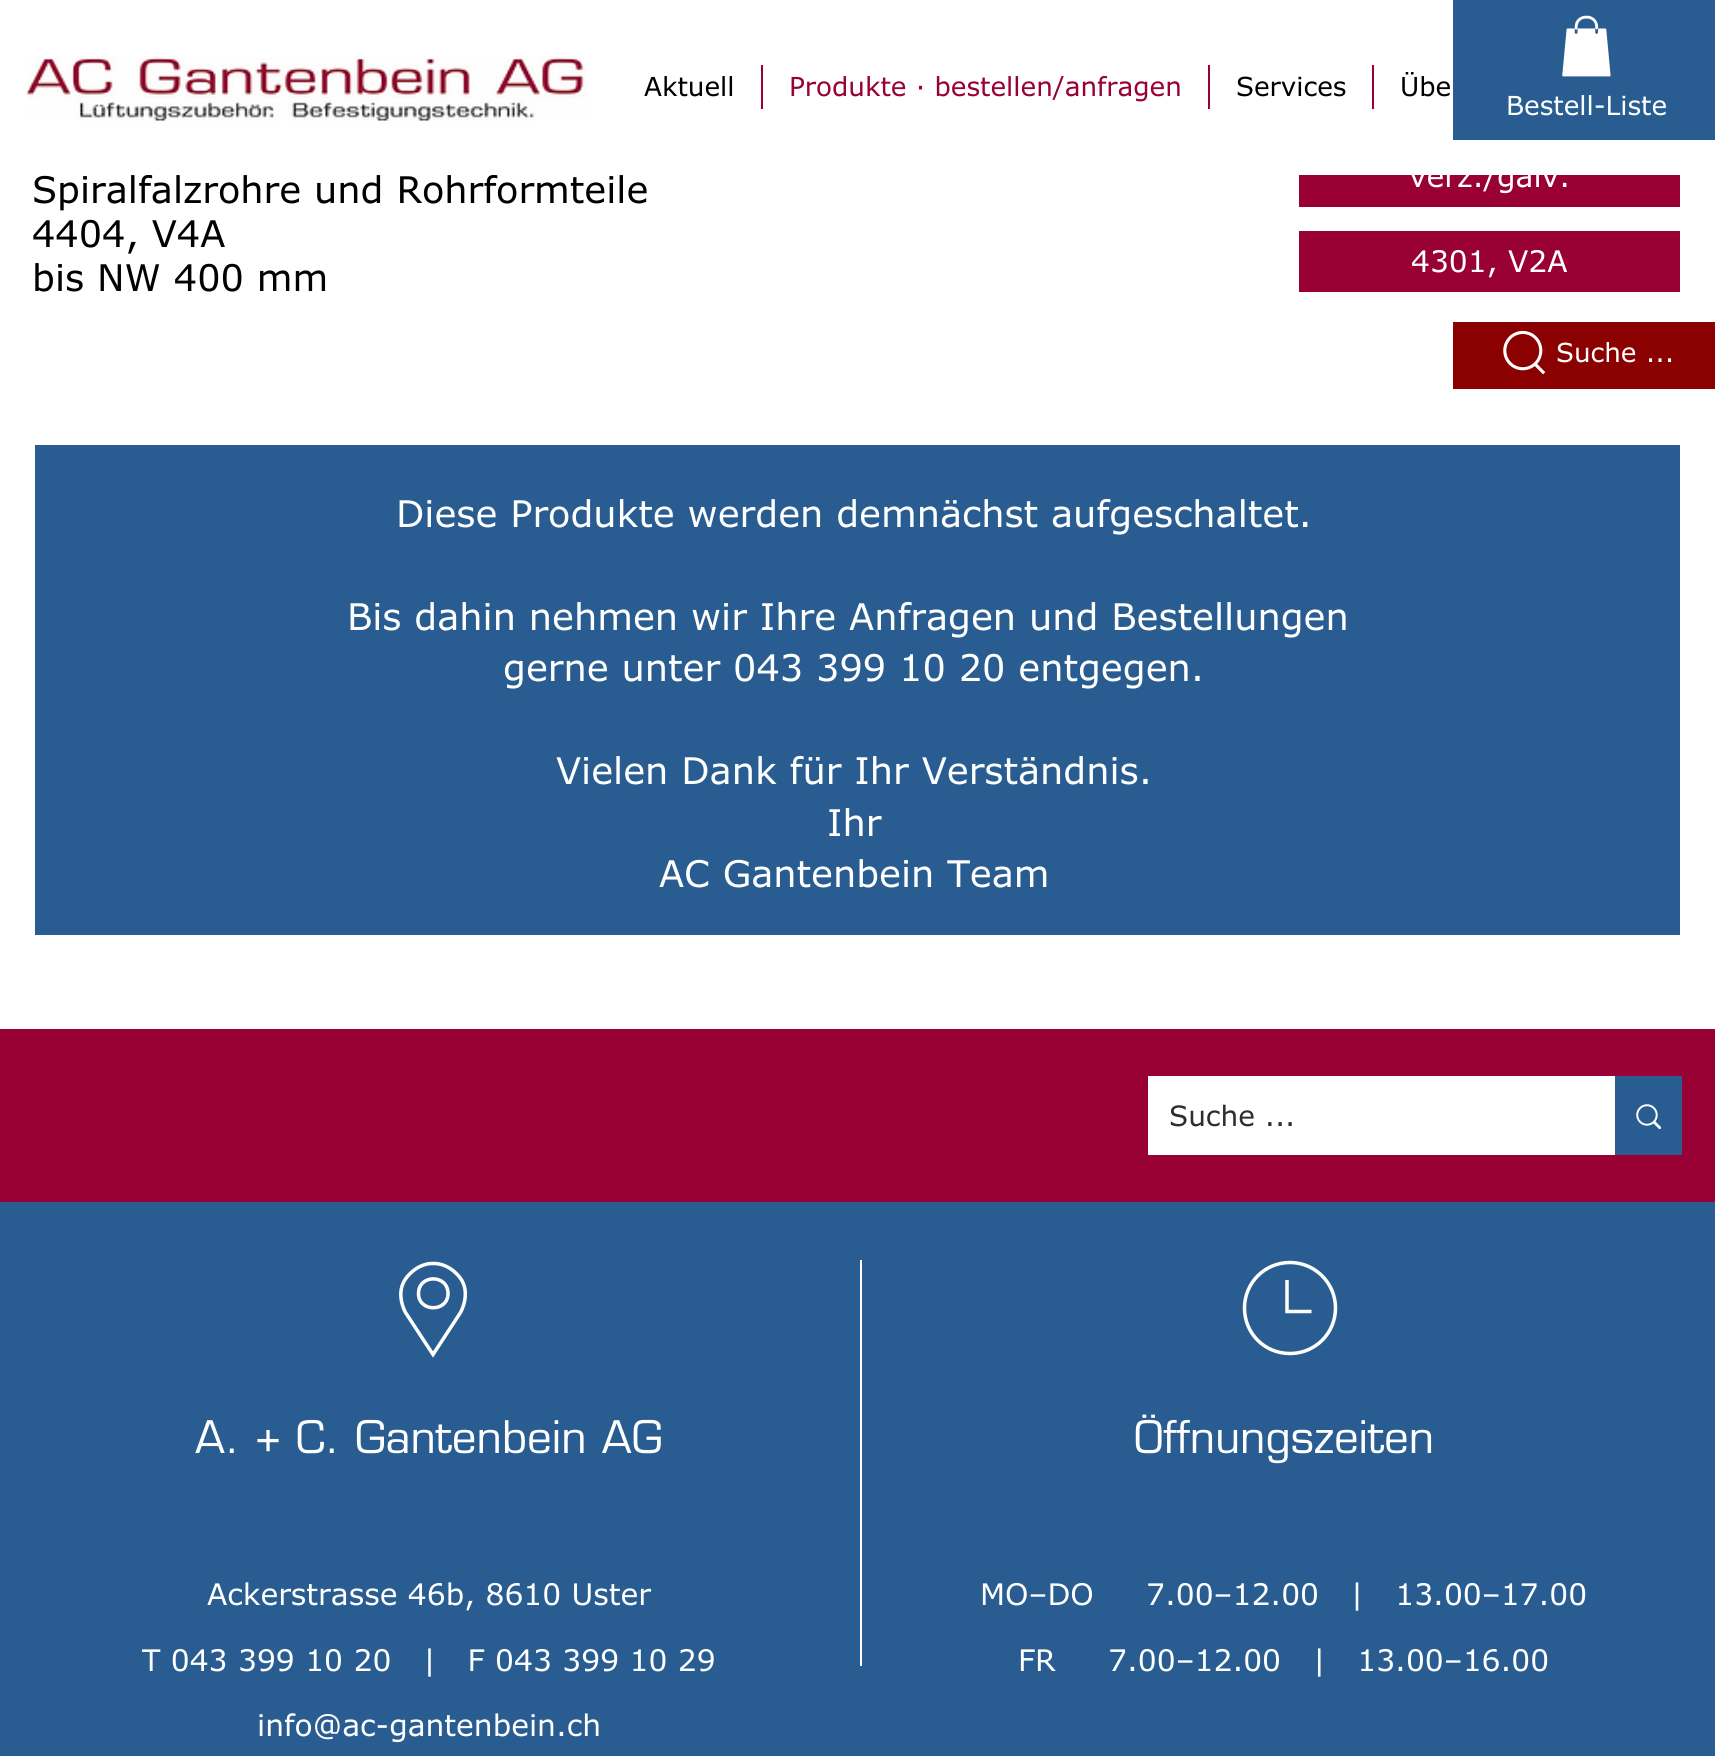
import math
import cairo

surface = cairo.ImageSurface(cairo.FORMAT_RGB24, 1715, 1756)
ctx = cairo.Context(surface)
options = cairo.FontOptions()
options.set_hint_metrics(cairo.HINT_METRICS_OFF)
options.set_hint_style(cairo.HINT_STYLE_NONE)
ctx.set_font_options(options)
ctx.set_miter_limit(4)


def picture(path, x, y, w, h):
    ctx.save()
    ctx.set_source_surface(cairo.ImageSurface.create_from_png(path), x, y)
    ctx.rectangle(x, y, w, h)
    ctx.fill()
    ctx.restore()


ctx.set_source_rgb(1, 1, 1)
ctx.paint()
picture("img1.png", 26, 56, 560, 65)
ctx.select_font_face("Verdana")
ctx.set_font_size(26.25)
ctx.set_source_rgb(0, 0, 0)
ctx.move_to(644, 96)
ctx.show_text("Aktuell")
ctx.set_source_rgb(0.6, 0.004, 0.204)
ctx.rectangle(761, 65, 2, 44)
ctx.fill()
ctx.move_to(789, 96)
ctx.show_text("Produkte ∙ bestellen/anfragen")
ctx.rectangle(1208, 65, 2, 44)
ctx.fill()
ctx.set_source_rgb(0, 0, 0)
ctx.move_to(1236, 96)
ctx.show_text("Services")
ctx.set_source_rgb(0.6, 0.004, 0.204)
ctx.rectangle(1372, 65, 2, 44)
ctx.fill()
ctx.set_source_rgb(0, 0, 0)
ctx.move_to(1400, 96)
ctx.show_text("Übe")
ctx.set_font_size(36.75)
ctx.move_to(32, 203)
ctx.show_text("Spiralfalzrohre und Rohrformteile")
ctx.set_source_rgb(1, 1, 1)
ctx.rectangle(147, 174, 348, 1)
ctx.fill()
ctx.set_source_rgb(0, 0, 0)
ctx.move_to(32, 247)
ctx.show_text("4404, V4A")
ctx.move_to(32, 291)
ctx.show_text("bis NW 400 mm")
ctx.set_source_rgb(0.6, 0.004, 0.204)
ctx.rectangle(1299, 175, 381, 32)
ctx.fill()
ctx.set_font_size(29.75)
ctx.set_source_rgb(1, 1, 1)
ctx.move_to(1409, 187)
ctx.show_text("verz./galv.")
ctx.set_source_rgb(0.6, 0.004, 0.204)
ctx.rectangle(1299, 231, 381, 61)
ctx.fill()
ctx.set_source_rgb(1, 1, 1)
ctx.move_to(1411, 272)
ctx.show_text("4301, V2A")
ctx.set_source_rgb(0.161, 0.365, 0.573)
ctx.rectangle(35, 445, 1645, 490)
ctx.fill()
ctx.set_font_size(36.75)
ctx.set_source_rgb(1, 1, 1)
ctx.move_to(396, 527)
ctx.show_text("Diese Produkte werden demnächst aufgeschaltet.")
ctx.move_to(347, 630)
ctx.show_text("Bis dahin nehmen wir Ihre Anfragen und Bestellungen")
ctx.move_to(503, 681)
ctx.show_text("gerne unter 043 399 10 20 entgegen.")
ctx.move_to(556, 784)
ctx.show_text("Vielen Dank für Ihr Verständnis.")
ctx.move_to(827, 836)
ctx.show_text("Ihr")
ctx.move_to(659, 887)
ctx.show_text("AC Gantenbein Team")
ctx.set_source_rgb(0.161, 0.365, 0.573)
ctx.rectangle(1453, 0, 262, 140)
ctx.fill()
picture("img2.png", 1562, 15, 49, 62)
ctx.set_font_size(26.25)
ctx.set_source_rgb(1, 1, 1)
ctx.move_to(1506, 115)
ctx.show_text("Bestell-Liste")
ctx.set_source_rgb(0.545, 0, 0)
ctx.rectangle(1453, 322, 262, 67)
ctx.fill()
picture("img3.png", 1503, 330, 43, 45)
ctx.set_source_rgb(1, 1, 1)
ctx.move_to(1556, 362)
ctx.show_text("Suche ...")
ctx.set_source_rgb(0.6, 0.004, 0.204)
ctx.rectangle(0, 1029, 1715, 173)
ctx.fill()
ctx.set_source_rgb(1, 1, 1)
ctx.rectangle(1148, 1076, 467, 79)
ctx.fill()
ctx.set_font_size(28)
ctx.set_source_rgb(0.184, 0.18, 0.18)
ctx.move_to(1169, 1126)
ctx.show_text("Suche ...")
ctx.set_source_rgb(0.161, 0.365, 0.573)
ctx.rectangle(1615, 1076, 67, 79)
ctx.fill()
picture("img4.png", 1636, 1104, 25, 25)
ctx.rectangle(0, 1202, 1715, 554)
ctx.fill()
ctx.new_path()
ctx.move_to(433, 1263.5)
ctx.curve_to(434.5, 1263.5, 447.5, 1262.5, 459.5, 1277)
ctx.curve_to(472, 1292.5, 460.5, 1312.5, 460.5, 1312.5)
ctx.line_to(433, 1354.5)
ctx.line_to(405.5, 1312.5)
ctx.curve_to(405.5, 1312.5, 394, 1292.5, 407, 1277)
ctx.curve_to(419, 1262.5, 432, 1263.5, 433, 1263.5)
ctx.close_path()
ctx.move_to(448, 1293.5)
ctx.curve_to(448, 1274, 418.5, 1274, 418.5, 1293.5)
ctx.curve_to(418.5, 1312.5, 448, 1312.5, 448, 1293.5)
ctx.close_path()
ctx.set_source_rgb(1, 1, 1)
ctx.set_line_width(3.5)
ctx.stroke()
ctx.rectangle(860, 1260, 2, 406)
ctx.fill()
ctx.new_path()
ctx.move_to(1335.5, 1308)
ctx.curve_to(1335.5, 1333.5, 1315, 1353.5, 1290, 1353.5)
ctx.curve_to(1264.5, 1353.5, 1244.5, 1333.5, 1244.5, 1308)
ctx.curve_to(1244.5, 1283, 1264.5, 1262.5, 1290, 1262.5)
ctx.curve_to(1315, 1262.5, 1335.5, 1283, 1335.5, 1308)
ctx.close_path()
ctx.stroke()
ctx.new_path()
ctx.move_to(1311.5, 1311.5)
ctx.line_to(1287, 1311.5)
ctx.line_to(1287, 1280)
ctx.stroke()
ctx.select_font_face("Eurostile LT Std")
ctx.set_font_size(43.75)
ctx.move_to(195, 1453)
ctx.show_text("A. + C. Gantenbein AG")
ctx.move_to(1134, 1453)
ctx.show_text("Öffnungszeiten")
ctx.select_font_face("Verdana")
ctx.set_font_size(29.75)
ctx.move_to(207, 1605)
ctx.show_text("Ackerstrasse 46b, 8610 Uster")
ctx.move_to(142, 1671)
ctx.show_text("T 043 399 10 20   |   F 043 399 10 29")
ctx.move_to(257, 1736)
ctx.show_text("info@ac-gantenbein.ch")
ctx.move_to(980, 1605)
ctx.show_text("MO–DO     7.00–12.00   |   13.00–17.00")
ctx.move_to(1018, 1671)
ctx.show_text("FR     7.00–12.00   |   13.00–16.00")
surface.write_to_png("page.png")
